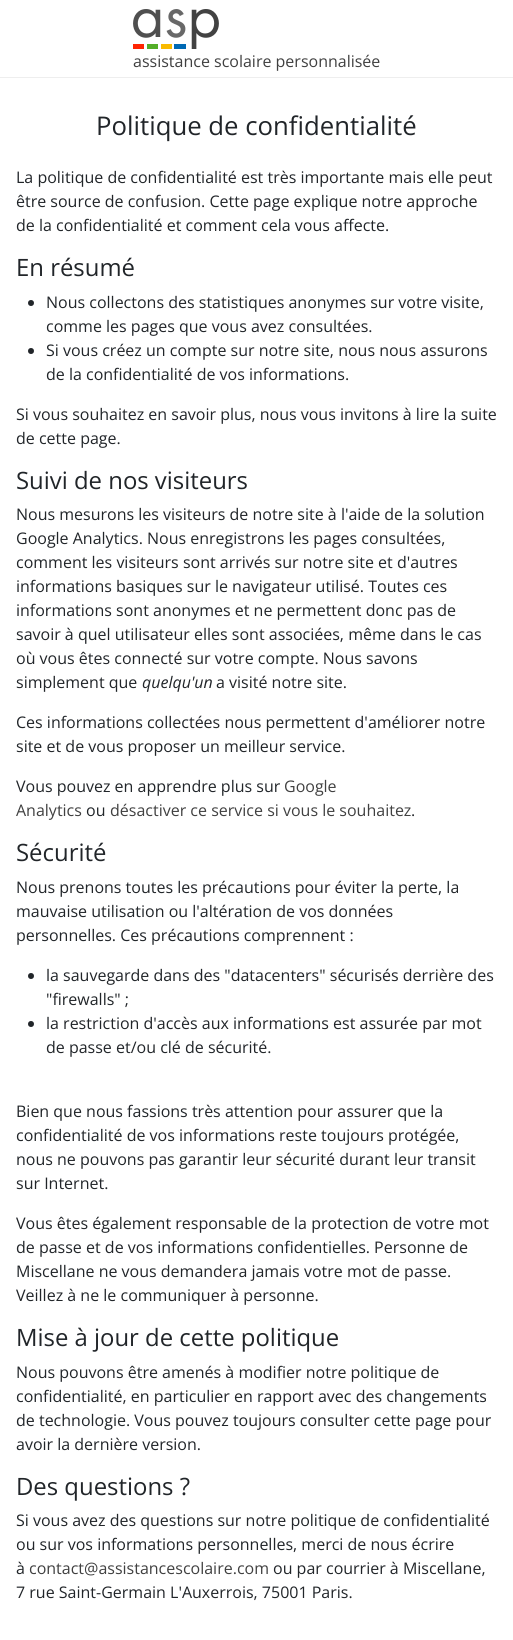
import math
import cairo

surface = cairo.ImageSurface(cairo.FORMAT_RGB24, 513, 1640)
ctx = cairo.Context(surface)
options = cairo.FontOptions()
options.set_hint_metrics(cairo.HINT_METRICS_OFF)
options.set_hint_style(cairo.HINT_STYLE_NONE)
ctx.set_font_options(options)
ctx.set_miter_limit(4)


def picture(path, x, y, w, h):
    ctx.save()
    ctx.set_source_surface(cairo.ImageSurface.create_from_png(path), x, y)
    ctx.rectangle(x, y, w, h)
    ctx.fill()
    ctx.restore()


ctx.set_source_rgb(1, 1, 1)
ctx.paint()
ctx.set_source_rgb(0.933, 0.933, 0.933)
ctx.rectangle(0, 77, 513, 1)
ctx.fill()
picture("img1.png", 133, 9, 86, 40)
ctx.select_font_face("Open Sans")
ctx.set_font_size(16)
ctx.set_source_rgb(0.251, 0.251, 0.251)
ctx.move_to(133, 67)
ctx.show_text("assistance scolaire personnalisée")
ctx.set_font_size(25.75)
ctx.set_source_rgb(0.129, 0.145, 0.161)
ctx.move_to(96, 135)
ctx.show_text("Politique de confidentialité")
ctx.set_font_size(16)
ctx.move_to(16, 183)
ctx.show_text("La politique de confidentialité est très importante mais elle peut")
ctx.move_to(16, 207)
ctx.show_text("être source de confusion. Cette page explique notre approche")
ctx.move_to(16, 231)
ctx.show_text("de la confidentialité et comment cela vous affecte.")
ctx.set_font_size(23.9)
ctx.move_to(16, 276)
ctx.show_text("En résumé")
ctx.new_path()
ctx.arc(31, 303, 3, 0, 2 * math.pi)
ctx.fill()
ctx.set_font_size(16)
ctx.move_to(46, 308)
ctx.show_text("Nous collectons des statistiques anonymes sur votre visite,")
ctx.move_to(46, 332)
ctx.show_text("comme les pages que vous avez consultées.")
ctx.new_path()
ctx.arc(31, 351, 3, 0, 2 * math.pi)
ctx.fill()
ctx.move_to(46, 356)
ctx.show_text("Si vous créez un compte sur notre site, nous nous assurons")
ctx.move_to(46, 380)
ctx.show_text("de la confidentialité de vos informations.")
ctx.move_to(16, 420)
ctx.show_text("Si vous souhaitez en savoir plus, nous vous invitons à lire la suite")
ctx.move_to(16, 444)
ctx.show_text("de cette page.")
ctx.set_font_size(23.9)
ctx.move_to(16, 489)
ctx.show_text("Suivi de nos visiteurs")
ctx.set_font_size(16)
ctx.move_to(16, 520)
ctx.show_text("Nous mesurons les visiteurs de notre site à l'aide de la solution")
ctx.move_to(16, 544)
ctx.show_text("Google Analytics. Nous enregistrons les pages consultées,")
ctx.move_to(16, 568)
ctx.show_text("comment les visiteurs sont arrivés sur notre site et d'autres")
ctx.move_to(16, 592)
ctx.show_text("informations basiques sur le navigateur utilisé. Toutes ces")
ctx.move_to(16, 616)
ctx.show_text("informations sont anonymes et ne permettent donc pas de")
ctx.move_to(16, 640)
ctx.show_text("savoir à quel utilisateur elles sont associées, même dans le cas")
ctx.move_to(16, 664)
ctx.show_text("où vous êtes connecté sur votre compte. Nous savons")
ctx.move_to(16, 688)
ctx.show_text("simplement que")
ctx.select_font_face("Open Sans", cairo.FONT_SLANT_ITALIC)
ctx.move_to(142, 688)
ctx.show_text("quelqu'un")
ctx.select_font_face("Open Sans")
ctx.move_to(216, 688)
ctx.show_text("a visité notre site.")
ctx.move_to(16, 728)
ctx.show_text("Ces informations collectées nous permettent d'améliorer notre")
ctx.move_to(16, 752)
ctx.show_text("site et de vous proposer un meilleur service.")
ctx.move_to(16, 792)
ctx.show_text("Vous pouvez en apprendre plus sur")
ctx.set_source_rgb(0.251, 0.251, 0.251)
ctx.move_to(284, 792)
ctx.show_text("Google")
ctx.move_to(16, 816)
ctx.show_text("Analytics")
ctx.set_source_rgb(0.129, 0.145, 0.161)
ctx.move_to(86, 816)
ctx.show_text("ou")
ctx.set_source_rgb(0.251, 0.251, 0.251)
ctx.move_to(110, 816)
ctx.show_text("désactiver ce service si vous le souhaitez")
ctx.set_source_rgb(0.129, 0.145, 0.161)
ctx.move_to(411, 816)
ctx.show_text(".")
ctx.set_font_size(23.9)
ctx.move_to(16, 861)
ctx.show_text("Sécurité")
ctx.set_font_size(16)
ctx.move_to(16, 893)
ctx.show_text("Nous prenons toutes les précautions pour éviter la perte, la")
ctx.move_to(16, 917)
ctx.show_text("mauvaise utilisation ou l'altération de vos données")
ctx.move_to(16, 941)
ctx.show_text("personnelles. Ces précautions comprennent :")
ctx.new_path()
ctx.arc(31, 976, 3, 0, 2 * math.pi)
ctx.fill()
ctx.move_to(46, 981)
ctx.show_text("la sauvegarde dans des \"datacenters\" sécurisés derrière des")
ctx.move_to(46, 1005)
ctx.show_text("\"firewalls\" ;")
ctx.new_path()
ctx.arc(31, 1024, 3, 0, 2 * math.pi)
ctx.fill()
ctx.move_to(46, 1029)
ctx.show_text("la restriction d'accès aux informations est assurée par mot")
ctx.move_to(46, 1053)
ctx.show_text("de passe et/ou clé de sécurité.")
ctx.move_to(16, 1117)
ctx.show_text("Bien que nous fassions très attention pour assurer que la")
ctx.move_to(16, 1141)
ctx.show_text("confidentialité de vos informations reste toujours protégée,")
ctx.move_to(16, 1165)
ctx.show_text("nous ne pouvons pas garantir leur sécurité durant leur transit")
ctx.move_to(16, 1189)
ctx.show_text("sur Internet.")
ctx.move_to(16, 1229)
ctx.show_text("Vous êtes également responsable de la protection de votre mot")
ctx.move_to(16, 1253)
ctx.show_text("de passe et de vos informations confidentielles. Personne de")
ctx.move_to(16, 1277)
ctx.show_text("Miscellane ne vous demandera jamais votre mot de passe.")
ctx.move_to(16, 1301)
ctx.show_text("Veillez à ne le communiquer à personne.")
ctx.set_font_size(23.9)
ctx.move_to(16, 1346)
ctx.show_text("Mise à jour de cette politique")
ctx.set_font_size(16)
ctx.move_to(16, 1378)
ctx.show_text("Nous pouvons être amenés à modifier notre politique de")
ctx.move_to(16, 1402)
ctx.show_text("confidentialité, en particulier en rapport avec des changements")
ctx.move_to(16, 1426)
ctx.show_text("de technologie. Vous pouvez toujours consulter cette page pour")
ctx.move_to(16, 1450)
ctx.show_text("avoir la dernière version.")
ctx.set_font_size(23.9)
ctx.move_to(16, 1495)
ctx.show_text("Des questions ?")
ctx.set_font_size(16)
ctx.move_to(16, 1526)
ctx.show_text("Si vous avez des questions sur notre politique de confidentialité")
ctx.move_to(16, 1550)
ctx.show_text("ou sur vos informations personnelles, merci de nous écrire")
ctx.move_to(16, 1574)
ctx.show_text("à")
ctx.set_source_rgb(0.251, 0.251, 0.251)
ctx.move_to(29, 1574)
ctx.show_text("contact@assistancescolaire.com")
ctx.set_source_rgb(0.129, 0.145, 0.161)
ctx.move_to(273, 1574)
ctx.show_text("ou par courrier à Miscellane,")
ctx.move_to(16, 1598)
ctx.show_text("7 rue Saint-Germain L'Auxerrois, 75001 Paris.")
surface.write_to_png("page.png")
